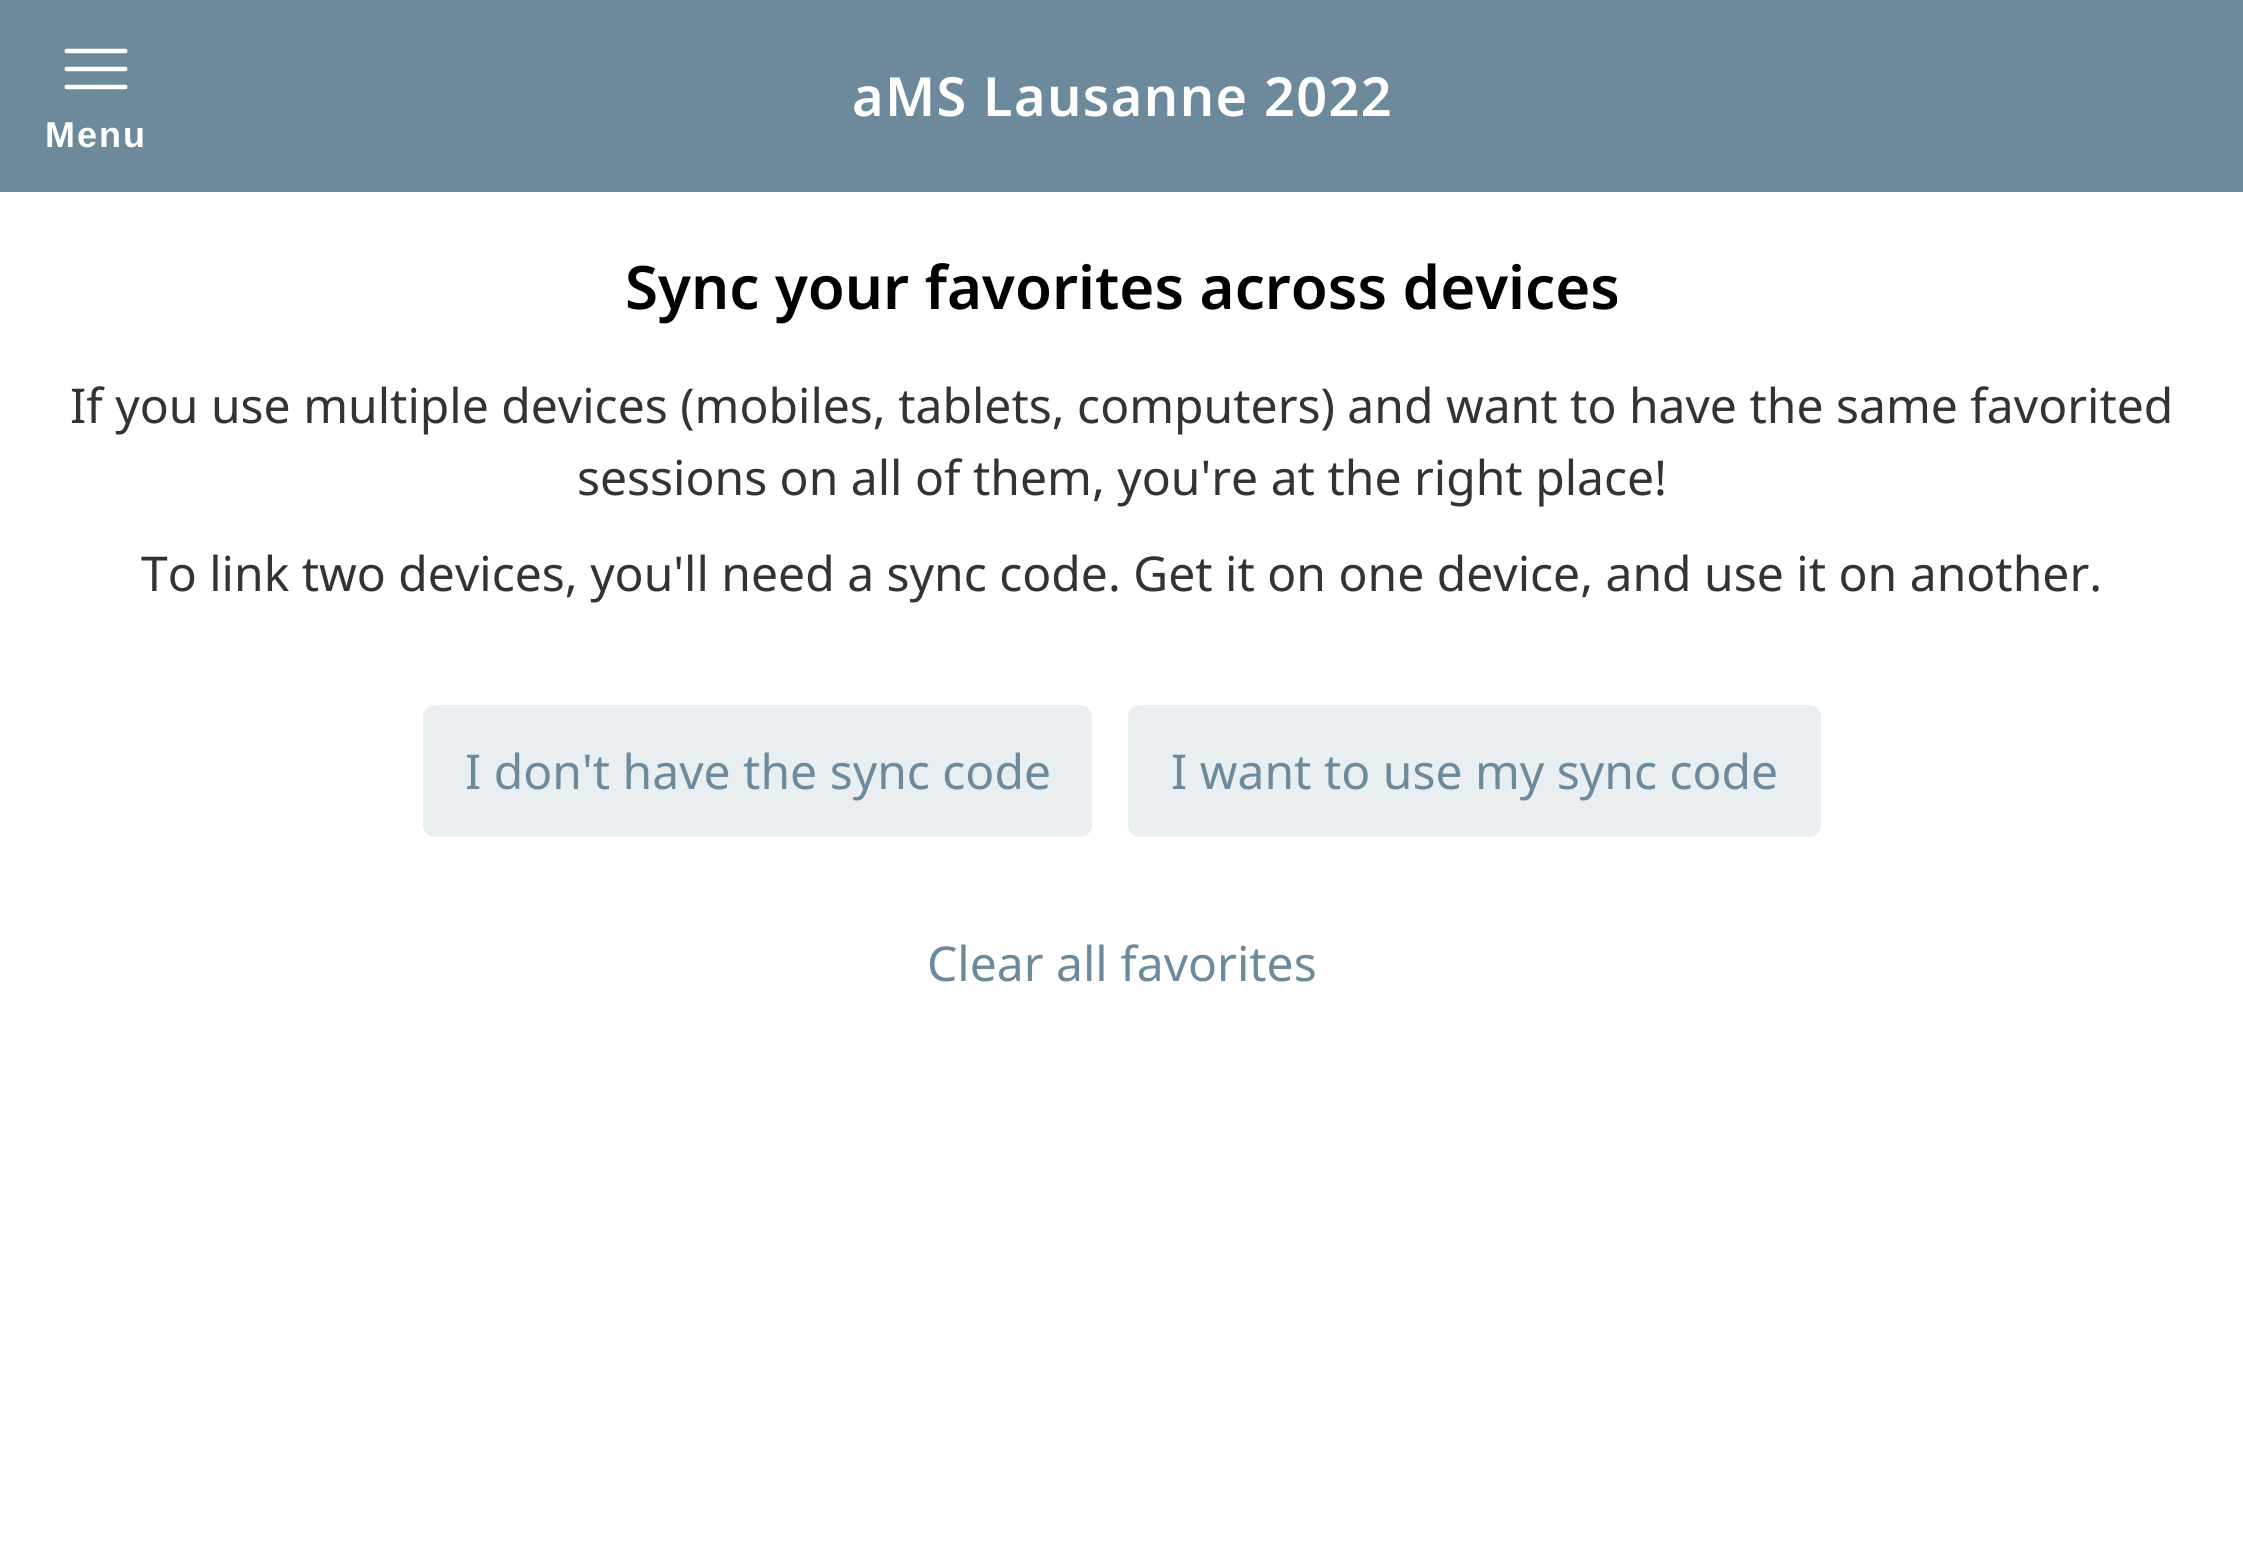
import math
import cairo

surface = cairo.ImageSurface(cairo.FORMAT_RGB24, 2243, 1556)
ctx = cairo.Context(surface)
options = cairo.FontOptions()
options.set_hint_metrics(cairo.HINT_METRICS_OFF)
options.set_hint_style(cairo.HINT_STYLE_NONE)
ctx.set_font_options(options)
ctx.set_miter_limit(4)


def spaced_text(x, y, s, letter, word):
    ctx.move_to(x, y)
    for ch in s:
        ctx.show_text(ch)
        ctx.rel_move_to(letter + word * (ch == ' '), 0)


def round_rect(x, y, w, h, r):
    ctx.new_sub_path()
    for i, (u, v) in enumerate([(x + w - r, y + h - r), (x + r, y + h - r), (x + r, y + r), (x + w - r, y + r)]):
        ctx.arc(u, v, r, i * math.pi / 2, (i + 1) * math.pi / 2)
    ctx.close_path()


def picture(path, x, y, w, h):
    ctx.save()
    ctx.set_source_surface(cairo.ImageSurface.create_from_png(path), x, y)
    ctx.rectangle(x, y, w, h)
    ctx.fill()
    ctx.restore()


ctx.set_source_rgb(1, 1, 1)
ctx.paint()
ctx.set_source_rgb(0.427, 0.541, 0.612)
ctx.rectangle(0, 0, 2243, 192)
ctx.fill()
ctx.select_font_face("Noto Sans SemiBold")
ctx.set_font_size(54)
ctx.set_source_rgb(1, 1, 1)
spaced_text(852, 116, "aMS Lausanne 2022", 1.4, 0)
picture("img1.png", 64, 48, 64, 42)
ctx.select_font_face("Liberation Sans", cairo.FONT_SLANT_NORMAL, cairo.FONT_WEIGHT_BOLD)
ctx.set_font_size(36)
spaced_text(45, 147, "Menu", 2, 0)
ctx.select_font_face("Noto Sans SemiBold")
ctx.set_font_size(60)
ctx.set_source_rgb(0, 0, 0)
ctx.move_to(625, 309)
ctx.show_text("Sync your favorites across devices")
ctx.select_font_face("Noto Sans")
ctx.set_font_size(48)
ctx.set_source_rgb(0.2, 0.2, 0.2)
ctx.move_to(70, 423)
ctx.show_text("If you use multiple devices (mobiles, tablets, computers) and want to have the same favorited")
ctx.move_to(577, 495)
ctx.show_text("sessions on all of them, you're at the right place!")
ctx.move_to(141, 591)
ctx.show_text("To link two devices, you'll need a sync code. Get it on one device, and use it on another.")
ctx.set_source_rgb(0.914, 0.933, 0.941)
round_rect(423, 705, 669, 132, 12)
ctx.fill()
ctx.set_source_rgb(0.427, 0.541, 0.612)
ctx.move_to(465, 789)
ctx.show_text("I don't have the sync code")
ctx.set_source_rgb(0.914, 0.933, 0.941)
round_rect(1128, 705, 693, 132, 12)
ctx.fill()
ctx.set_source_rgb(0.427, 0.541, 0.612)
ctx.move_to(1171, 789)
ctx.show_text("I want to use my sync code")
ctx.move_to(927, 981)
ctx.show_text("Clear all favorites")
surface.write_to_png("page.png")
